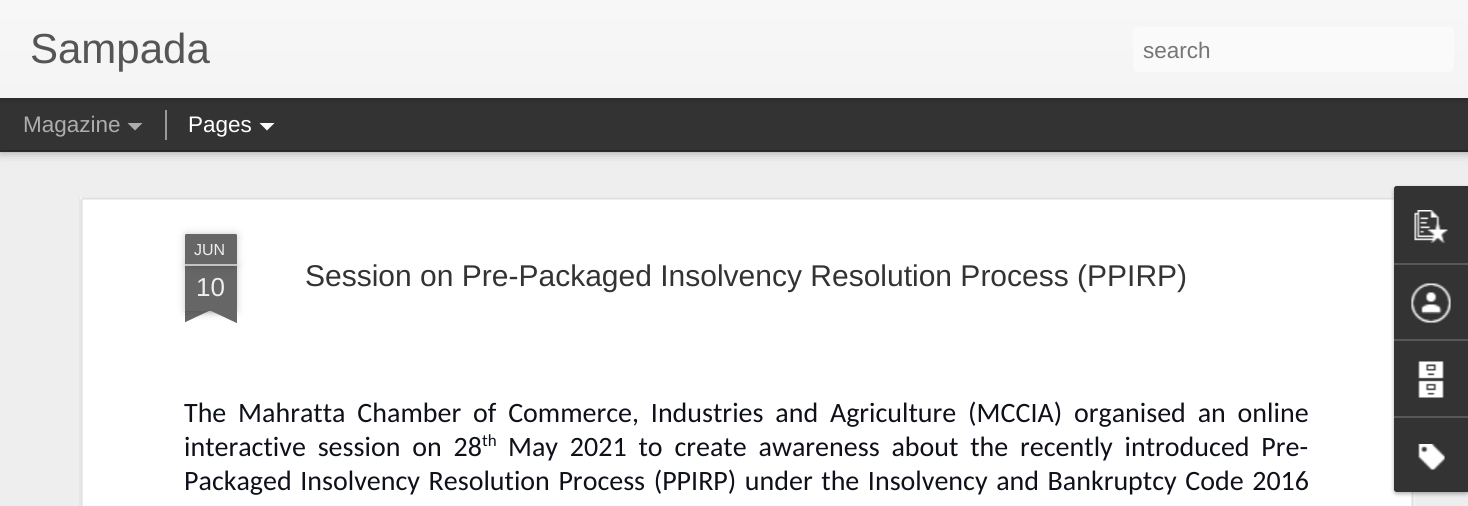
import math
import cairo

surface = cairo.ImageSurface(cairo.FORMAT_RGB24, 1468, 506)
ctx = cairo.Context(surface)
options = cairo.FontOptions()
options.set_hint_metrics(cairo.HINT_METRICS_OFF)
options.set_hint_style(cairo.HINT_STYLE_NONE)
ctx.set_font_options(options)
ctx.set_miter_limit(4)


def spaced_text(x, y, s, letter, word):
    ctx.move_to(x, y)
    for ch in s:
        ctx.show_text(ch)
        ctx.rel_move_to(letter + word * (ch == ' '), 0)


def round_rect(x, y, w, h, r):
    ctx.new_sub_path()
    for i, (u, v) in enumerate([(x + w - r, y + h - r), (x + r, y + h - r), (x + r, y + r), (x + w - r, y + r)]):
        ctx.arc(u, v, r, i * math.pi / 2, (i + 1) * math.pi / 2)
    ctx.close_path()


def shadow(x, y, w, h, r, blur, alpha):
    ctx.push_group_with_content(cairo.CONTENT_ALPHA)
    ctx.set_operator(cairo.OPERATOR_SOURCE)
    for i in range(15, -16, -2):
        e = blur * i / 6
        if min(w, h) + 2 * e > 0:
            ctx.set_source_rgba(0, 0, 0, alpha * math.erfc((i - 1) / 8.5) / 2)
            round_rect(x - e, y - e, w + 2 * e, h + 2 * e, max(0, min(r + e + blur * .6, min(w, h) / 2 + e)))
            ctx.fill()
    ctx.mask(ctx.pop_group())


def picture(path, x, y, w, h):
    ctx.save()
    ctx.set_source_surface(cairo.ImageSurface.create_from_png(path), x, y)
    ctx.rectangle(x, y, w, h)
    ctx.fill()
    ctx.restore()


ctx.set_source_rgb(0.2, 0.2, 0.2)
ctx.paint()
ctx.set_source_rgb(0.933, 0.933, 0.933)
ctx.rectangle(0, 152, 1468, 354)
ctx.fill()
ctx.set_source_rgb(0, 0, 0)
shadow(0, 98, 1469, 52, 0, 6, 0.5)
ctx.set_source_rgb(0.2, 0.2, 0.2)
ctx.rectangle(0, 98, 1468, 52)
ctx.fill()
ctx.set_source_rgb(0.6, 0.6, 0.6)
ctx.rectangle(165, 110, 2, 30)
ctx.fill()
ctx.set_source_rgb(0, 0, 0)
shadow(0, 0, 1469, 98, 0, 4, 0.3)
gradient = cairo.LinearGradient(0, 0, 0, 98)
gradient.add_color_stop_rgba(0, 0.969, 0.969, 0.969, 1)
gradient.add_color_stop_rgba(1, 0.957, 0.957, 0.957, 1)
ctx.set_source(gradient)
ctx.rectangle(0, 0, 1468, 98)
ctx.fill()
ctx.select_font_face("Liberation Sans")
ctx.set_font_size(42)
ctx.set_source_rgb(0.333, 0.333, 0.333)
ctx.move_to(30, 63)
ctx.show_text("Sampada")
ctx.set_source_rgb(0.98, 0.98, 0.98)
round_rect(1133, 27, 321, 45, 5)
ctx.fill()
ctx.set_font_size(22.5)
ctx.set_source_rgb(0.459, 0.459, 0.459)
ctx.move_to(1143, 58)
ctx.show_text("search")
ctx.set_source_rgb(0.678, 0.678, 0.678)
ctx.move_to(23, 132)
ctx.show_text("Magazine")
ctx.new_path()
ctx.move_to(127.5, 123)
ctx.line_to(142.5, 123)
ctx.line_to(135, 130.5)
ctx.close_path()
ctx.fill()
ctx.set_source_rgb(1, 1, 1)
ctx.move_to(188, 132)
ctx.show_text("Pages")
ctx.new_path()
ctx.move_to(259.5, 123)
ctx.line_to(274.5, 123)
ctx.line_to(267, 130.5)
ctx.close_path()
ctx.fill()
ctx.rectangle(80, 197, 1335, 309)
ctx.fill()
picture("img1.png", 79, 197, 1336, 309)
ctx.set_source_rgb(0, 0, 0)
shadow(185, 266, 52, 45, 0, 4, 0.2)
ctx.set_source_rgb(0.4, 0.4, 0.4)
ctx.rectangle(185, 266, 52, 45)
ctx.fill()
ctx.set_source_rgb(0, 0, 0)
shadow(185, 234, 52, 32, 1.5, 4, 0.2)
ctx.set_source_rgb(0.4, 0.4, 0.4)
ctx.new_path()
ctx.move_to(186.5, 234)
ctx.line_to(235.5, 234)
ctx.curve_to(236.5, 234, 237, 234.5, 237, 235.5)
ctx.line_to(237, 266)
ctx.line_to(185, 266)
ctx.line_to(185, 235.5)
ctx.curve_to(185, 234.5, 185.5, 234, 186.5, 234)
ctx.close_path()
ctx.fill()
ctx.set_source_rgb(0.761, 0.761, 0.761)
ctx.rectangle(185, 264, 52, 2)
ctx.fill()
ctx.set_font_size(16)
ctx.set_source_rgb(0.933, 0.933, 0.933)
ctx.move_to(194, 255)
ctx.show_text("JUN")
ctx.set_font_size(26)
ctx.move_to(196, 296)
ctx.show_text("10")
ctx.save()
ctx.rectangle(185, 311, 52, 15)
ctx.clip()
ctx.set_source_rgb(0, 0, 0)
shadow(171, 296, 75, 15, 0, 4, 0.2)
ctx.restore()
ctx.save()
ctx.rectangle(185, 311, 52, 15)
ctx.clip()
ctx.set_source_rgb(0.4, 0.4, 0.4)
ctx.new_path()
ctx.move_to(171, 312)
ctx.line_to(239, 280)
ctx.line_to(245, 294)
ctx.line_to(177, 326)
ctx.close_path()
ctx.fill()
ctx.restore()
ctx.save()
ctx.rectangle(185, 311, 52, 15)
ctx.clip()
ctx.set_source_rgb(0, 0, 0)
shadow(176, 296, 75, 15, 0, 4, 0.2)
ctx.restore()
ctx.save()
ctx.rectangle(185, 311, 52, 15)
ctx.clip()
ctx.set_source_rgb(0.4, 0.4, 0.4)
ctx.new_path()
ctx.move_to(181, 280)
ctx.line_to(249, 312)
ctx.line_to(243, 326)
ctx.line_to(175, 294)
ctx.close_path()
ctx.fill()
ctx.restore()
ctx.set_font_size(30)
ctx.set_source_rgb(0.2, 0.2, 0.2)
ctx.move_to(305, 286)
ctx.show_text("Session on Pre-Packaged Insolvency Resolution Process (PPIRP)")
ctx.select_font_face("Carlito")
ctx.set_font_size(28)
ctx.set_source_rgb(0.055, 0.063, 0.102)
spaced_text(184, 422, "The Mahratta Chamber of Commerce, Industries and Agriculture (MCCIA) organised an online", 0, 5.5)
spaced_text(184, 456, "interactive session on 28", 0, 5.5)
ctx.set_font_size(17)
ctx.move_to(482, 446)
ctx.show_text("th")
ctx.set_font_size(28)
spaced_text(508, 456, "May 2021 to create awareness about the recently introduced Pre-", 0, 5.5)
spaced_text(184, 490, "Packaged Insolvency Resolution Process (PPIRP) under the Insolvency and Bankruptcy Code 2016", 0, 2.25)
ctx.set_source_rgb(0, 0, 0)
shadow(1394, 188, 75, 306, 3, 2, 0.3)
ctx.set_source_rgb(0.2, 0.2, 0.2)
ctx.new_path()
ctx.move_to(1397, 186)
ctx.line_to(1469, 186)
ctx.line_to(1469, 492)
ctx.line_to(1397, 492)
ctx.curve_to(1395.5, 492, 1394, 490.5, 1394, 489)
ctx.line_to(1394, 189)
ctx.curve_to(1394, 187.5, 1395.5, 186, 1397, 186)
ctx.close_path()
ctx.fill()
ctx.new_path()
ctx.move_to(1397, 186)
ctx.line_to(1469, 186)
ctx.line_to(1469, 263)
ctx.line_to(1394, 263)
ctx.line_to(1394, 189)
ctx.curve_to(1394, 187.5, 1395.5, 186, 1397, 186)
ctx.close_path()
ctx.fill()
picture("img2.png", 1414, 210, 34, 33)
ctx.set_source_rgb(0.345, 0.345, 0.345)
ctx.rectangle(1394, 263, 74, 2)
ctx.fill()
picture("img3.png", 1411, 283, 40, 40)
ctx.rectangle(1394, 339, 74, 2)
ctx.fill()
picture("img4.png", 1418, 361, 26, 37)
ctx.set_source_rgb(0.2, 0.2, 0.2)
ctx.new_path()
ctx.move_to(1394, 416)
ctx.line_to(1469, 416)
ctx.line_to(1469, 492)
ctx.line_to(1397, 492)
ctx.curve_to(1395.5, 492, 1394, 490.5, 1394, 489)
ctx.close_path()
ctx.fill()
ctx.set_source_rgb(0.345, 0.345, 0.345)
ctx.rectangle(1394, 416, 74, 2)
ctx.fill()
picture("img5.png", 1418, 444, 27, 26)
surface.write_to_png("page.png")
